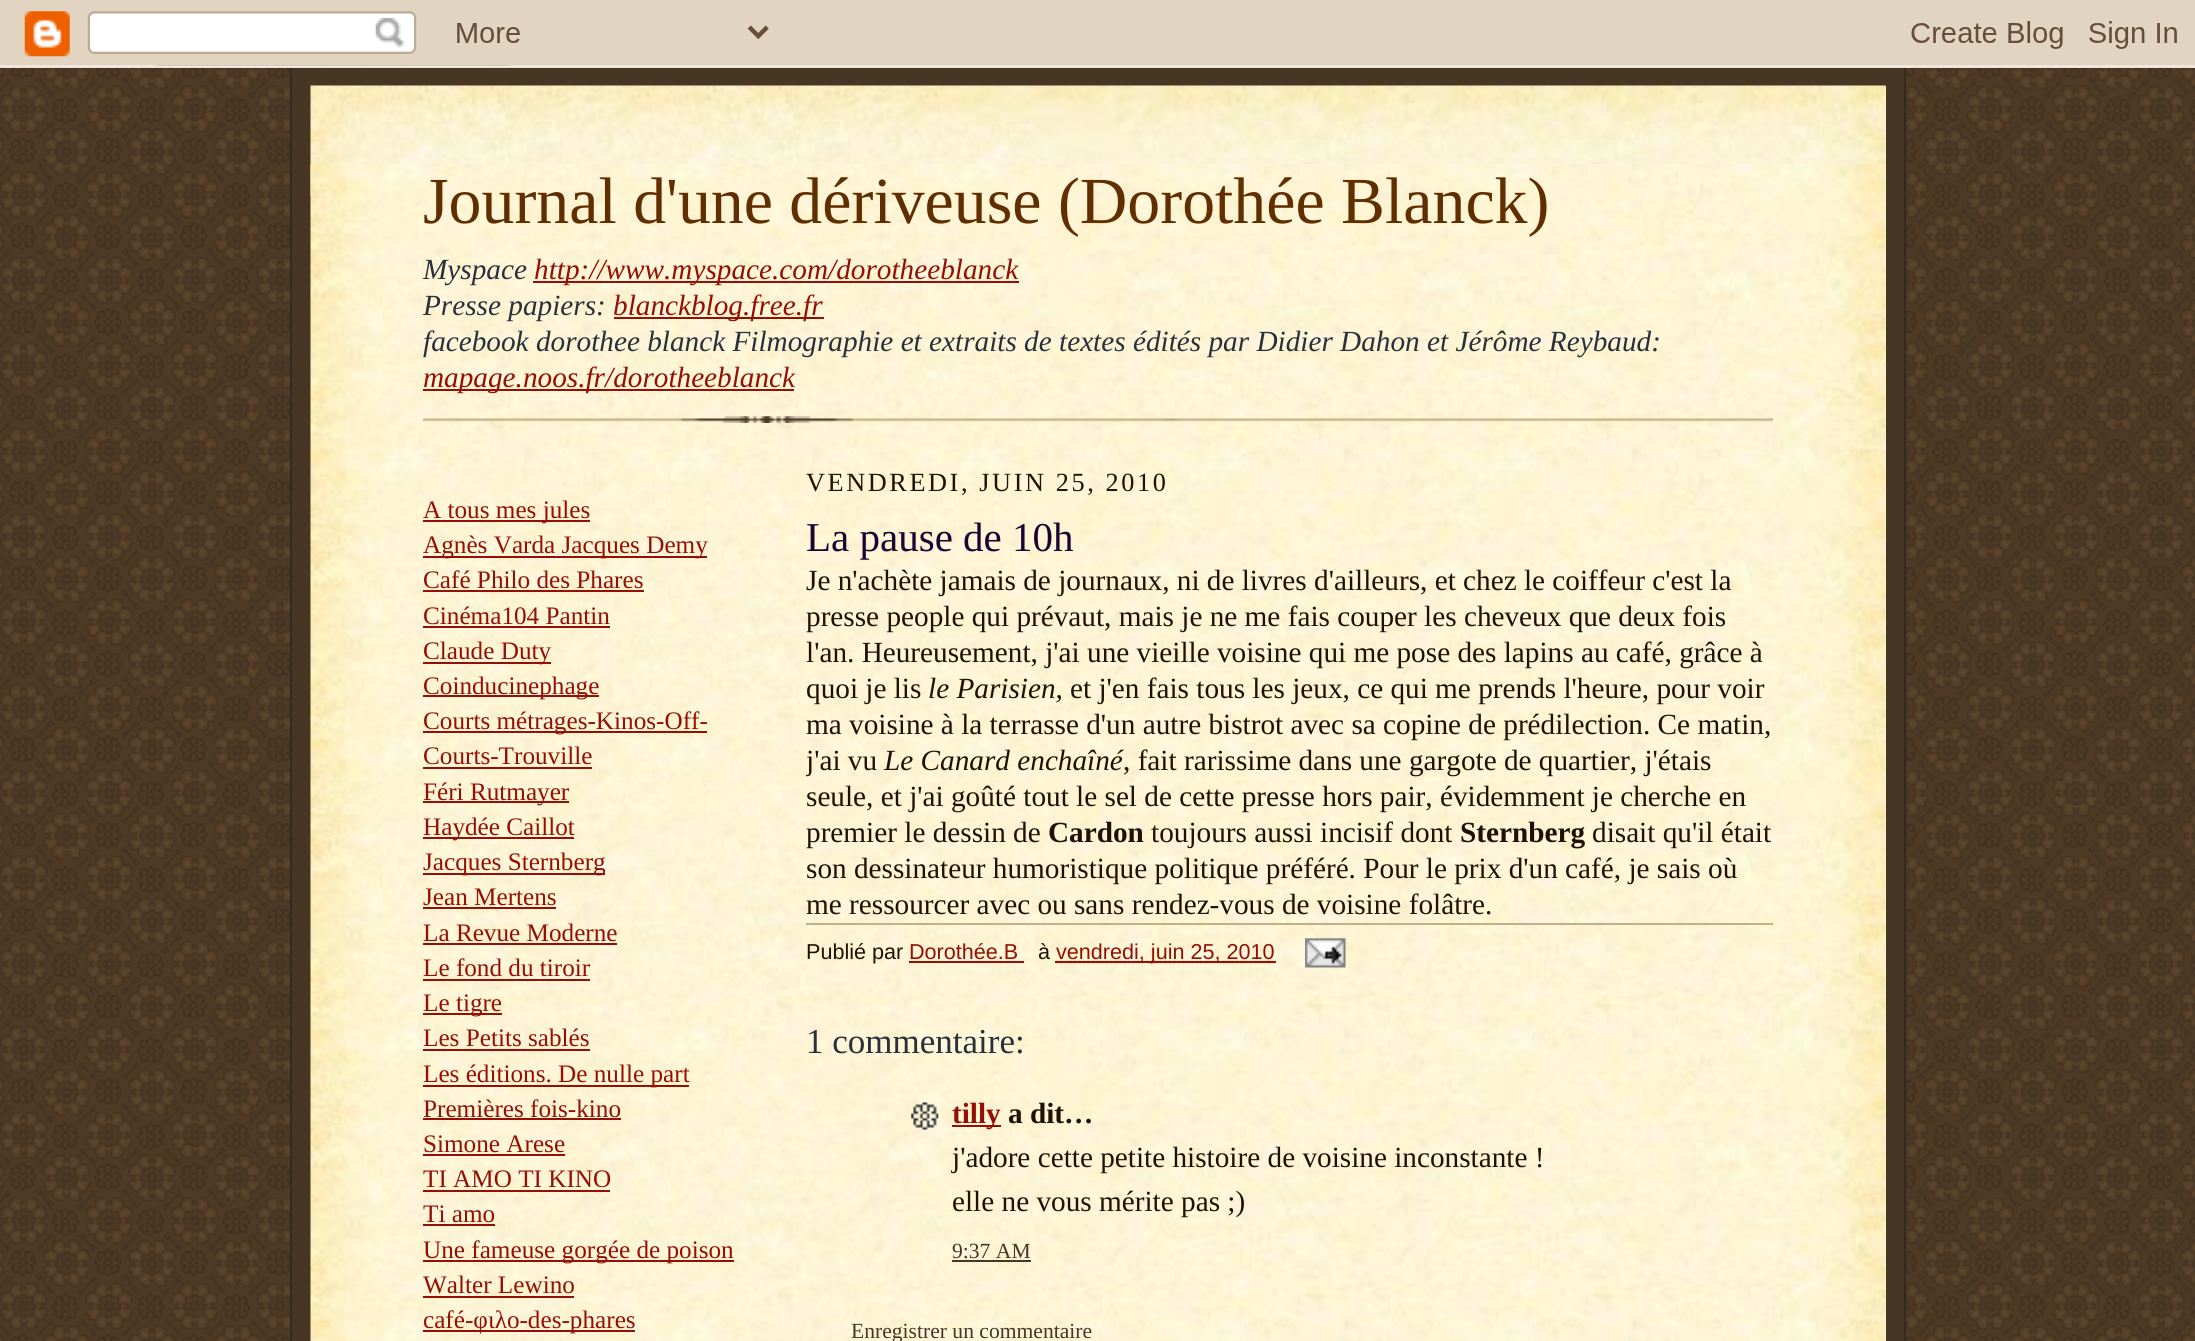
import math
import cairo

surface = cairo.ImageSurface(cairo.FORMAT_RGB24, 2195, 1341)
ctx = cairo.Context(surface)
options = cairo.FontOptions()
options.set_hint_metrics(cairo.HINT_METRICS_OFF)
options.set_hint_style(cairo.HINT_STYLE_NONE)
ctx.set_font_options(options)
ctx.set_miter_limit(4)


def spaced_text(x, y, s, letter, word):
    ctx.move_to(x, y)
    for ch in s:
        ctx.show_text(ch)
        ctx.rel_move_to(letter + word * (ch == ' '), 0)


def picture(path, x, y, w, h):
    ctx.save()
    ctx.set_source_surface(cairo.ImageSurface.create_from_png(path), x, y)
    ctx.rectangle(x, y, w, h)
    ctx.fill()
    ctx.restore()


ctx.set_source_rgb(1, 1, 1)
ctx.paint()
picture("img1.png", 0, 65, 2195, 1276)
picture("img2.png", 0, 0, 2195, 68)
ctx.set_source_rgb(0.278, 0.212, 0.141)
ctx.rectangle(292, 68, 1612, 1273)
ctx.fill()
ctx.set_source_rgb(0.2, 0.165, 0.141)
ctx.rectangle(1904, 68, 2, 1273)
ctx.fill()
ctx.rectangle(290, 68, 2, 1273)
ctx.fill()
ctx.set_source_rgb(1, 0.953, 0.859)
ctx.rectangle(1885, 86, 1, 78)
ctx.fill()
picture("img3.png", 310, 85, 1576, 111)
ctx.rectangle(311, 164, 1575, 1177)
ctx.fill()
picture("img4.png", 310, 164, 1576, 1177)
picture("img5.png", 423, 416, 1350, 7)
ctx.select_font_face("Liberation Serif")
ctx.set_font_size(65.8)
ctx.set_source_rgb(0.38, 0.18, 0)
ctx.move_to(423, 223)
ctx.show_text("Journal d'une dériveuse (Dorothée Blanck)")
ctx.select_font_face("Liberation Serif", cairo.FONT_SLANT_ITALIC)
ctx.set_font_size(29.25)
ctx.set_source_rgb(0.161, 0.188, 0.231)
ctx.move_to(423, 279)
ctx.show_text("Myspace")
ctx.set_source_rgb(0.58, 0.059, 0.016)
ctx.rectangle(533, 281, 486, 2)
ctx.fill()
ctx.move_to(534, 279)
ctx.show_text("http://www.myspace.com/dorotheeblanck")
ctx.set_source_rgb(0.161, 0.188, 0.231)
ctx.move_to(423, 315)
ctx.show_text("Presse papiers:")
ctx.set_source_rgb(0.58, 0.059, 0.016)
ctx.rectangle(614, 317, 210, 2)
ctx.fill()
ctx.move_to(613, 315)
ctx.show_text("blanckblog.free.fr")
ctx.set_source_rgb(0.161, 0.188, 0.231)
ctx.move_to(423, 351)
ctx.show_text("facebook dorothee blanck Filmographie et extraits de textes édités par Didier Dahon et Jérôme Reybaud:")
ctx.set_source_rgb(0.58, 0.059, 0.016)
ctx.rectangle(423, 389, 371, 2)
ctx.fill()
ctx.move_to(423, 387)
ctx.show_text("mapage.noos.fr/dorotheeblanck")
ctx.rectangle(423, 520, 167, 2)
ctx.fill()
ctx.select_font_face("Liberation Serif")
ctx.set_font_size(25.2)
ctx.move_to(423, 518)
ctx.show_text("A tous mes jules")
ctx.rectangle(423, 556, 284, 2)
ctx.fill()
ctx.move_to(423, 553)
ctx.show_text("Agnès Varda Jacques Demy")
ctx.move_to(423, 588)
ctx.show_text("Café Philo des Phares")
ctx.rectangle(423, 590, 221, 2)
ctx.fill()
ctx.move_to(423, 624)
ctx.show_text("Cinéma104 Pantin")
ctx.rectangle(423, 626, 187, 2)
ctx.fill()
ctx.rectangle(423, 662, 128, 2)
ctx.fill()
ctx.move_to(423, 659)
ctx.show_text("Claude Duty")
ctx.rectangle(423, 695, 176, 2)
ctx.fill()
ctx.move_to(423, 694)
ctx.show_text("Coinducinephage")
ctx.rectangle(423, 731, 284, 2)
ctx.fill()
ctx.move_to(423, 729)
ctx.show_text("Courts métrages-Kinos-Off-")
ctx.move_to(423, 764)
ctx.show_text("Courts-Trouville")
ctx.rectangle(423, 767, 169, 2)
ctx.fill()
ctx.rectangle(423, 801, 146, 2)
ctx.fill()
ctx.move_to(423, 800)
ctx.show_text("Féri Rutmayer")
ctx.rectangle(423, 837, 151, 2)
ctx.fill()
ctx.move_to(423, 835)
ctx.show_text("Haydée Caillot")
ctx.rectangle(423, 873, 182, 2)
ctx.fill()
ctx.move_to(423, 870)
ctx.show_text("Jacques Sternberg")
ctx.move_to(423, 905)
ctx.show_text("Jean Mertens")
ctx.rectangle(423, 907, 133, 2)
ctx.fill()
ctx.move_to(423, 941)
ctx.show_text("La Revue Moderne")
ctx.rectangle(423, 943, 194, 2)
ctx.fill()
ctx.move_to(423, 976)
ctx.show_text("Le fond du tiroir")
ctx.rectangle(423, 979, 167, 2)
ctx.fill()
ctx.rectangle(423, 1013, 79, 2)
ctx.fill()
ctx.move_to(423, 1011)
ctx.show_text("Le tigre")
ctx.move_to(423, 1046)
ctx.show_text("Les Petits sablés")
ctx.rectangle(423, 1049, 167, 2)
ctx.fill()
ctx.rectangle(423, 1085, 266, 2)
ctx.fill()
ctx.move_to(423, 1082)
ctx.show_text("Les éditions. De nulle part")
ctx.move_to(423, 1117)
ctx.show_text("Premières fois-kino")
ctx.rectangle(423, 1118, 198, 2)
ctx.fill()
ctx.move_to(423, 1152)
ctx.show_text("Simone Arese")
ctx.rectangle(423, 1154, 142, 2)
ctx.fill()
ctx.move_to(423, 1187)
ctx.show_text("TI AMO TI KINO")
ctx.rectangle(423, 1190, 187, 2)
ctx.fill()
ctx.move_to(423, 1222)
ctx.show_text("Ti amo")
ctx.rectangle(423, 1224, 72, 2)
ctx.fill()
ctx.rectangle(423, 1260, 311, 2)
ctx.fill()
ctx.move_to(423, 1258)
ctx.show_text("Une fameuse gorgée de poison")
ctx.move_to(423, 1293)
ctx.show_text("Walter Lewino")
ctx.rectangle(423, 1296, 151, 2)
ctx.fill()
ctx.rectangle(423, 1330, 212, 2)
ctx.fill()
ctx.move_to(423, 1328)
ctx.show_text("café-φιλο-des-phares")
ctx.set_font_size(26.25)
ctx.set_source_rgb(0.129, 0.067, 0.016)
spaced_text(806, 491, "VENDREDI, JUIN 25, 2010", 2.6, 0)
ctx.set_font_size(41)
ctx.set_source_rgb(0.106, 0.016, 0.192)
ctx.move_to(806, 551)
ctx.show_text("La pause de 10h")
ctx.set_font_size(29.25)
ctx.set_source_rgb(0.129, 0.067, 0.016)
ctx.move_to(806, 590)
ctx.show_text("Je n'achète jamais de journaux, ni de livres d'ailleurs, et chez le coiffeur c'est la")
ctx.move_to(806, 626)
ctx.show_text("presse people qui prévaut, mais je ne me fais couper les cheveux que deux fois")
ctx.move_to(806, 662)
ctx.show_text("l'an. Heureusement, j'ai une vieille voisine qui me pose des lapins au café, grâce à")
ctx.move_to(806, 698)
ctx.show_text("quoi je lis")
ctx.select_font_face("Liberation Serif", cairo.FONT_SLANT_ITALIC)
ctx.move_to(928, 698)
ctx.show_text("le Parisien,")
ctx.select_font_face("Liberation Serif")
ctx.move_to(1070, 698)
ctx.show_text("et j'en fais tous les jeux, ce qui me prends l'heure, pour voir")
ctx.move_to(806, 734)
ctx.show_text("ma voisine à la terrasse d'un autre bistrot avec sa copine de prédilection. Ce matin,")
ctx.save()
ctx.rectangle(806, 450, 967, 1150)
ctx.clip()
ctx.move_to(806, 770)
ctx.show_text("j'ai vu")
ctx.restore()
ctx.select_font_face("Liberation Serif", cairo.FONT_SLANT_ITALIC)
ctx.move_to(884, 770)
ctx.show_text("Le Canard enchaîné")
ctx.select_font_face("Liberation Serif")
ctx.move_to(1123, 770)
ctx.show_text(", fait rarissime dans une gargote de quartier, j'étais")
ctx.move_to(806, 806)
ctx.show_text("seule, et j'ai goûté tout le sel de cette presse hors pair, évidemment je cherche en")
ctx.move_to(806, 842)
ctx.show_text("premier le dessin de")
ctx.select_font_face("Liberation Serif", cairo.FONT_SLANT_NORMAL, cairo.FONT_WEIGHT_BOLD)
ctx.move_to(1048, 842)
ctx.show_text("Cardon")
ctx.select_font_face("Liberation Serif")
ctx.move_to(1151, 842)
ctx.show_text("toujours aussi incisif dont")
ctx.select_font_face("Liberation Serif", cairo.FONT_SLANT_NORMAL, cairo.FONT_WEIGHT_BOLD)
ctx.move_to(1460, 842)
ctx.show_text("Sternberg")
ctx.select_font_face("Liberation Serif")
ctx.move_to(1592, 842)
ctx.show_text("disait qu'il était")
ctx.move_to(806, 878)
ctx.show_text("son dessinateur humoristique politique préféré. Pour le prix d'un café, je sais où")
ctx.move_to(806, 914)
ctx.show_text("me ressourcer avec ou sans rendez-vous de voisine folâtre.")
ctx.set_source_rgb(0.749, 0.694, 0.525)
ctx.rectangle(806, 923, 967, 2)
ctx.fill()
ctx.select_font_face("Liberation Sans")
ctx.set_font_size(21.6)
ctx.set_source_rgb(0.129, 0.067, 0.016)
ctx.move_to(806, 959)
ctx.show_text("Publié par")
ctx.set_source_rgb(0.58, 0.059, 0.016)
ctx.move_to(909, 959)
ctx.show_text("Dorothée.B")
ctx.rectangle(909, 961, 115, 2)
ctx.fill()
ctx.set_source_rgb(0.129, 0.067, 0.016)
ctx.move_to(1038, 959)
ctx.show_text("à")
ctx.new_path()
ctx.move_to(1056, 962)
ctx.line_to(1274.5, 962)
ctx.set_source_rgb(0.58, 0.059, 0.016)
ctx.set_line_width(2.2)
ctx.set_dash([2.25, 2.25])
ctx.stroke()
ctx.rectangle(1055, 961, 221, 2)
ctx.fill()
ctx.move_to(1056, 959)
ctx.show_text("vendredi, juin 25, 2010")
picture("img6.png", 1305, 938, 41, 30)
ctx.select_font_face("Liberation Serif")
ctx.set_font_size(35)
ctx.set_source_rgb(0.161, 0.188, 0.231)
ctx.move_to(806, 1053)
ctx.show_text("1 commentaire:")
picture("img7.png", 911, 1102, 28, 28)
ctx.set_source_rgb(0.58, 0.059, 0.016)
ctx.rectangle(952, 1125, 49, 2)
ctx.fill()
ctx.select_font_face("Liberation Serif", cairo.FONT_SLANT_NORMAL, cairo.FONT_WEIGHT_BOLD)
ctx.set_font_size(29.25)
ctx.move_to(952, 1123)
ctx.show_text("tilly")
ctx.set_source_rgb(0.129, 0.067, 0.016)
ctx.move_to(1008, 1123)
ctx.show_text("a dit…")
ctx.select_font_face("Liberation Serif")
ctx.move_to(952, 1167)
ctx.show_text("j'adore cette petite histoire de voisine inconstante !")
ctx.move_to(952, 1211)
ctx.show_text("elle ne vous mérite pas ;)")
ctx.set_font_size(21.6)
ctx.set_source_rgb(0.278, 0.212, 0.141)
ctx.move_to(952, 1258)
ctx.show_text("9:37 AM")
ctx.rectangle(952, 1260, 79, 2)
ctx.fill()
ctx.move_to(851, 1338)
ctx.show_text("Enregistrer un commentaire")
surface.write_to_png("page.png")
